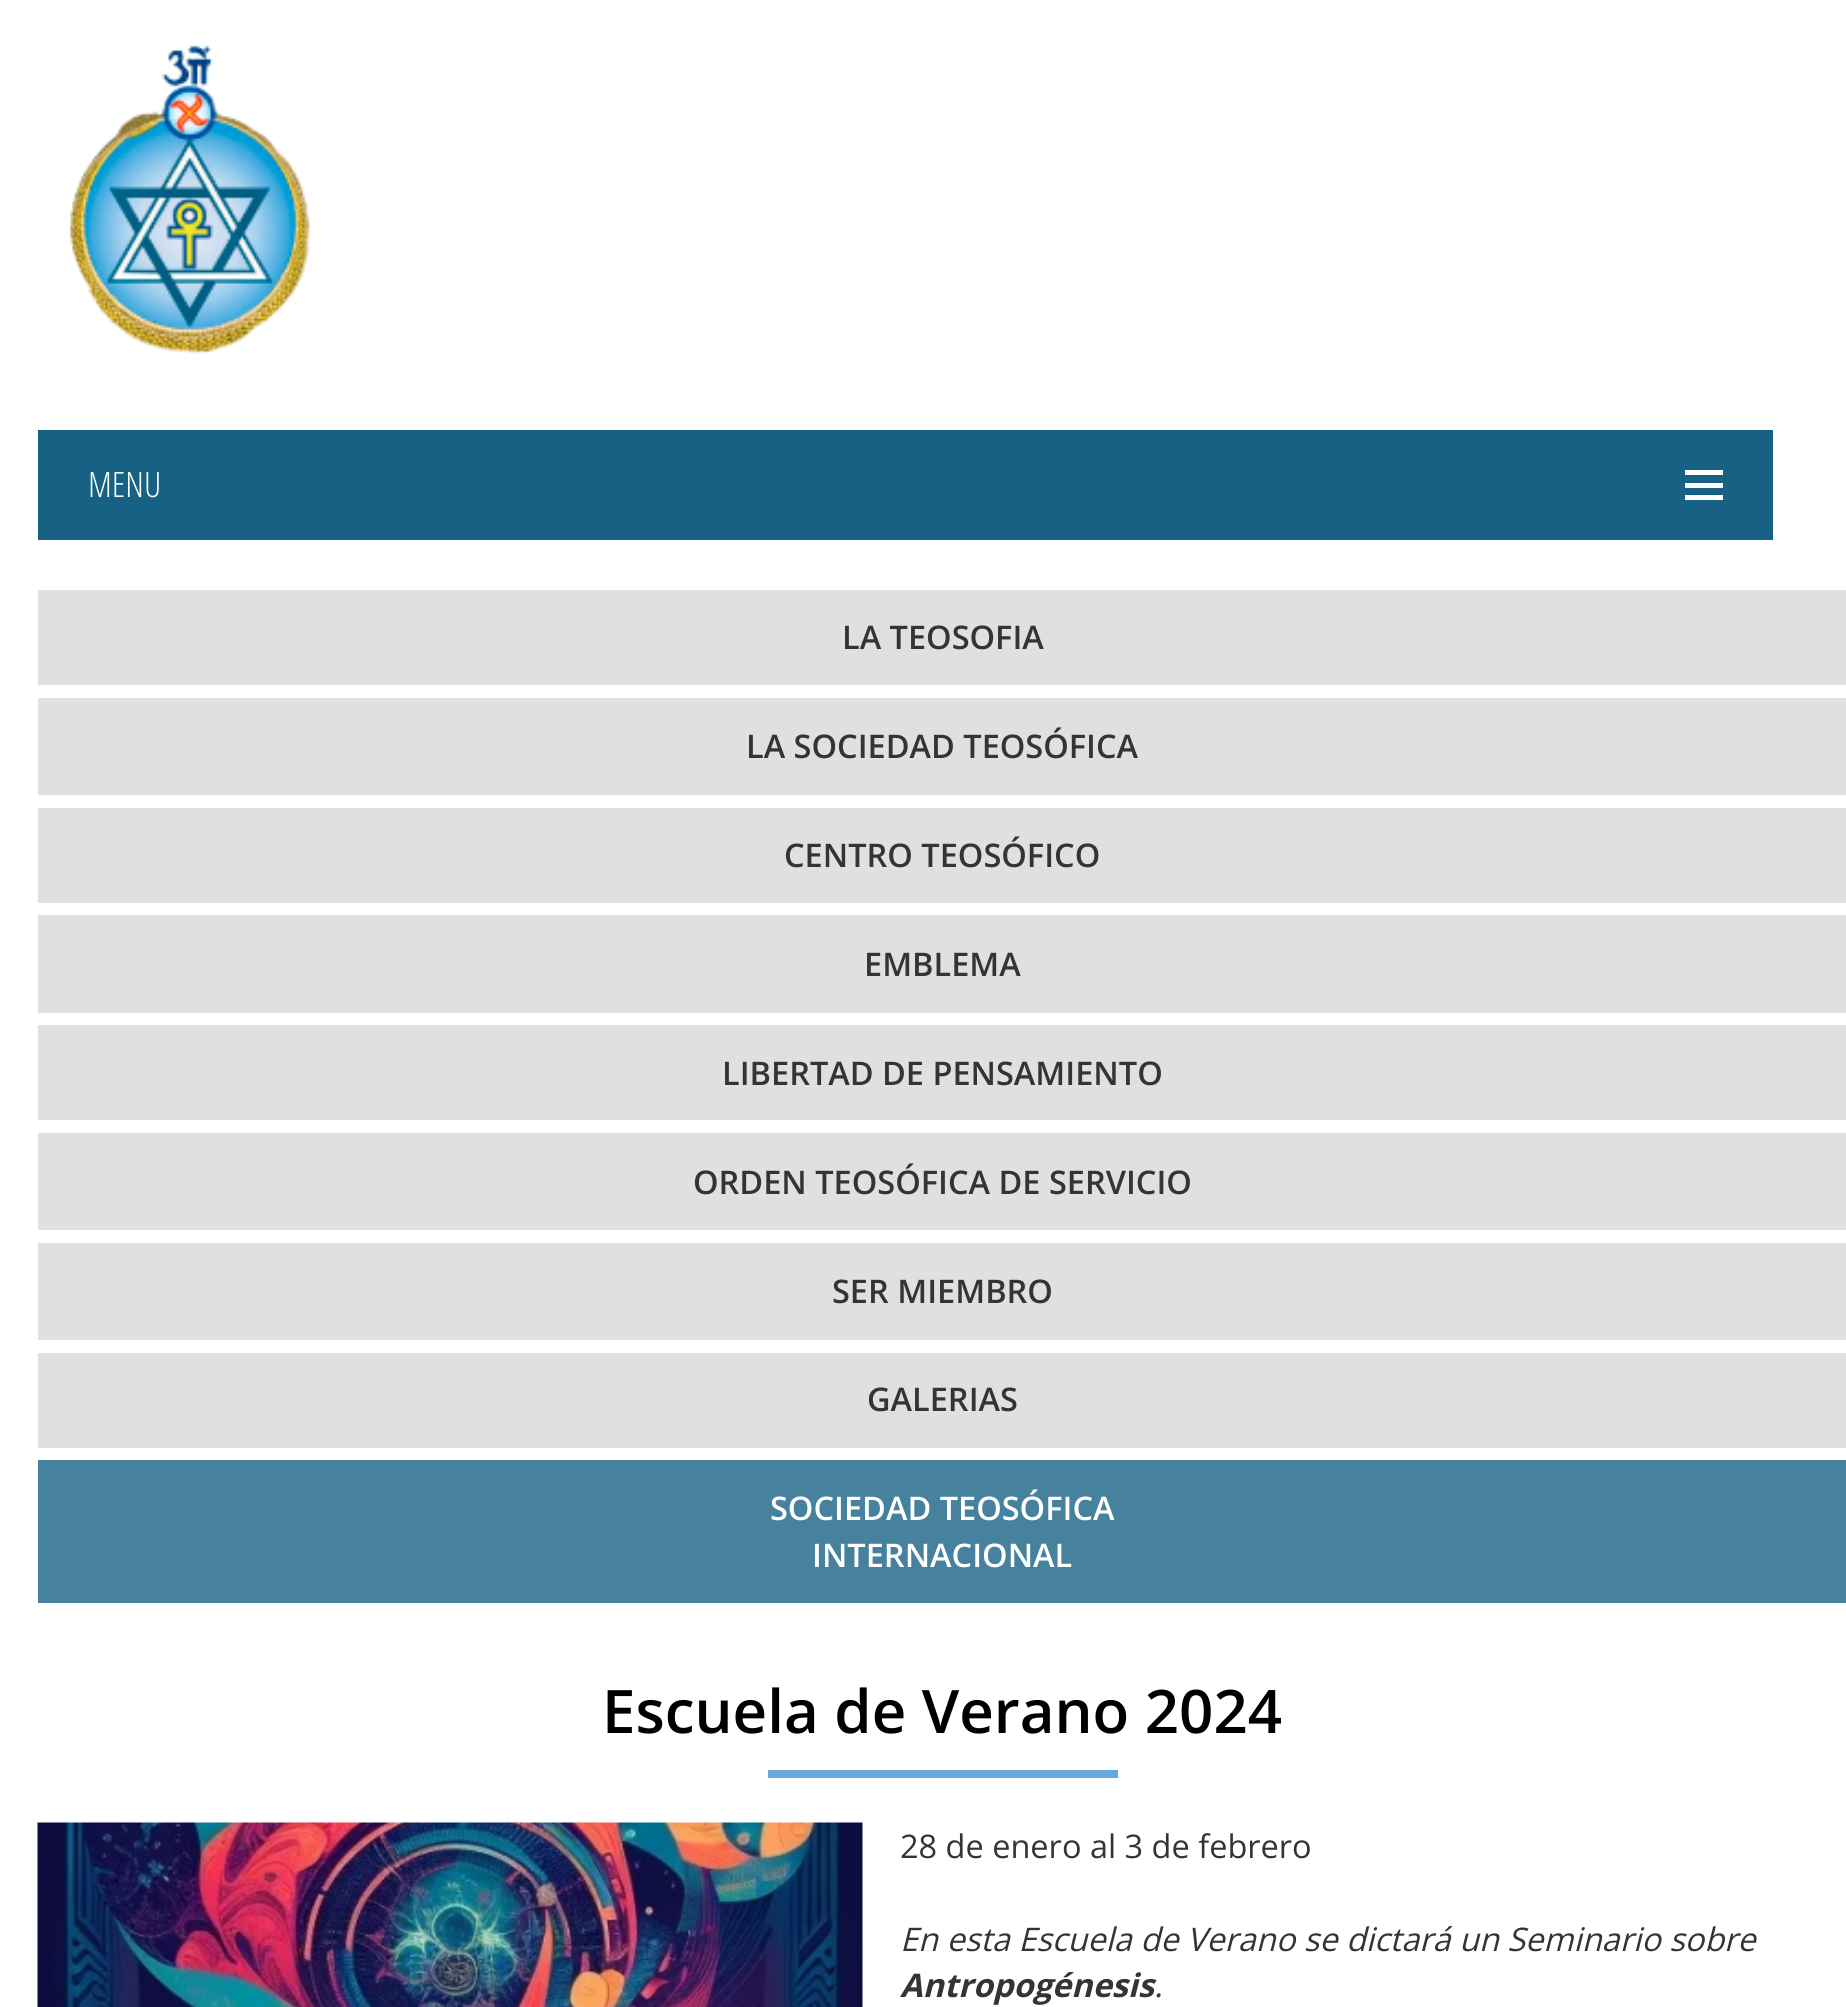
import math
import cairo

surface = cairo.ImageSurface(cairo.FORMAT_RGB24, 1846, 2007)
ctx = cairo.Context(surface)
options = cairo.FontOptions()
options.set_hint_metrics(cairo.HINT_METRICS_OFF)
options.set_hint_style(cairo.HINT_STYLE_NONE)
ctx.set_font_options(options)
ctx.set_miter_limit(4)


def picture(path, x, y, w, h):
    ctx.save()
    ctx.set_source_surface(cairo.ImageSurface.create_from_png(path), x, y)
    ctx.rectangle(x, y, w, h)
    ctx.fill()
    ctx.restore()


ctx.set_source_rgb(1, 1, 1)
ctx.paint()
picture("img1.png", 69, 45, 242, 309)
ctx.set_source_rgb(0.09, 0.38, 0.518)
ctx.rectangle(38, 430, 1735, 110)
ctx.fill()
ctx.select_font_face("Open Sans Condensed Light")
ctx.set_font_size(35)
ctx.set_source_rgb(1, 1, 1)
ctx.move_to(88, 497)
ctx.show_text("MENU")
ctx.rectangle(1685, 470, 38, 5)
ctx.fill()
ctx.rectangle(1685, 483, 38, 5)
ctx.fill()
ctx.rectangle(1685, 495, 38, 5)
ctx.fill()
ctx.set_source_rgb(0.878, 0.878, 0.875)
ctx.rectangle(38, 590, 1808, 95)
ctx.fill()
ctx.select_font_face("Open Sans SemiBold")
ctx.set_font_size(32.5)
ctx.set_source_rgb(0.204, 0.204, 0.204)
ctx.move_to(842, 649)
ctx.show_text("LA TEOSOFIA")
ctx.set_source_rgb(0.878, 0.878, 0.875)
ctx.rectangle(38, 698, 1808, 97)
ctx.fill()
ctx.set_source_rgb(0.204, 0.204, 0.204)
ctx.move_to(746, 758)
ctx.show_text("LA SOCIEDAD TEOSÓFICA")
ctx.set_source_rgb(0.878, 0.878, 0.875)
ctx.rectangle(38, 808, 1808, 95)
ctx.fill()
ctx.set_source_rgb(0.204, 0.204, 0.204)
ctx.move_to(784, 867)
ctx.show_text("CENTRO TEOSÓFICO")
ctx.set_source_rgb(0.878, 0.878, 0.875)
ctx.rectangle(38, 915, 1808, 98)
ctx.fill()
ctx.set_source_rgb(0.204, 0.204, 0.204)
ctx.move_to(864, 976)
ctx.show_text("EMBLEMA")
ctx.set_source_rgb(0.878, 0.878, 0.875)
ctx.rectangle(38, 1025, 1808, 95)
ctx.fill()
ctx.set_source_rgb(0.204, 0.204, 0.204)
ctx.move_to(722, 1085)
ctx.show_text("LIBERTAD DE PENSAMIENTO")
ctx.set_source_rgb(0.878, 0.878, 0.875)
ctx.rectangle(38, 1133, 1808, 97)
ctx.fill()
ctx.set_source_rgb(0.204, 0.204, 0.204)
ctx.move_to(693, 1194)
ctx.show_text("ORDEN TEOSÓFICA DE SERVICIO")
ctx.set_source_rgb(0.878, 0.878, 0.875)
ctx.rectangle(38, 1243, 1808, 97)
ctx.fill()
ctx.set_source_rgb(0.204, 0.204, 0.204)
ctx.move_to(832, 1303)
ctx.show_text("SER MIEMBRO")
ctx.set_source_rgb(0.878, 0.878, 0.875)
ctx.rectangle(38, 1353, 1808, 95)
ctx.fill()
ctx.set_source_rgb(0.204, 0.204, 0.204)
ctx.move_to(867, 1411)
ctx.show_text("GALERIAS")
ctx.set_source_rgb(0.275, 0.506, 0.616)
ctx.rectangle(38, 1460, 1808, 143)
ctx.fill()
ctx.set_source_rgb(1, 1, 1)
ctx.move_to(770, 1520)
ctx.show_text("SOCIEDAD TEOSÓFICA")
ctx.move_to(812, 1567)
ctx.show_text("INTERNACIONAL")
ctx.set_font_size(60)
ctx.set_source_rgb(0, 0, 0)
ctx.move_to(602, 1733)
ctx.show_text("Escuela de Verano 2024")
ctx.set_source_rgb(0.412, 0.659, 0.859)
ctx.rectangle(768, 1770, 350, 8)
ctx.fill()
picture("img2.png", 37, 1822, 826, 185)
ctx.select_font_face("Open Sans")
ctx.set_font_size(32.5)
ctx.set_source_rgb(0.204, 0.204, 0.204)
ctx.move_to(900, 1858)
ctx.show_text("28 de enero al 3 de febrero")
ctx.select_font_face("Open Sans", cairo.FONT_SLANT_ITALIC)
ctx.move_to(900, 1951)
ctx.show_text("En esta Escuela de Verano se dictará un Seminario sobre")
ctx.select_font_face("Open Sans", cairo.FONT_SLANT_ITALIC, cairo.FONT_WEIGHT_BOLD)
ctx.move_to(900, 1997)
ctx.show_text("Antropogénesis")
ctx.select_font_face("Open Sans", cairo.FONT_SLANT_ITALIC)
ctx.move_to(1154, 1997)
ctx.show_text(".")
surface.write_to_png("page.png")
